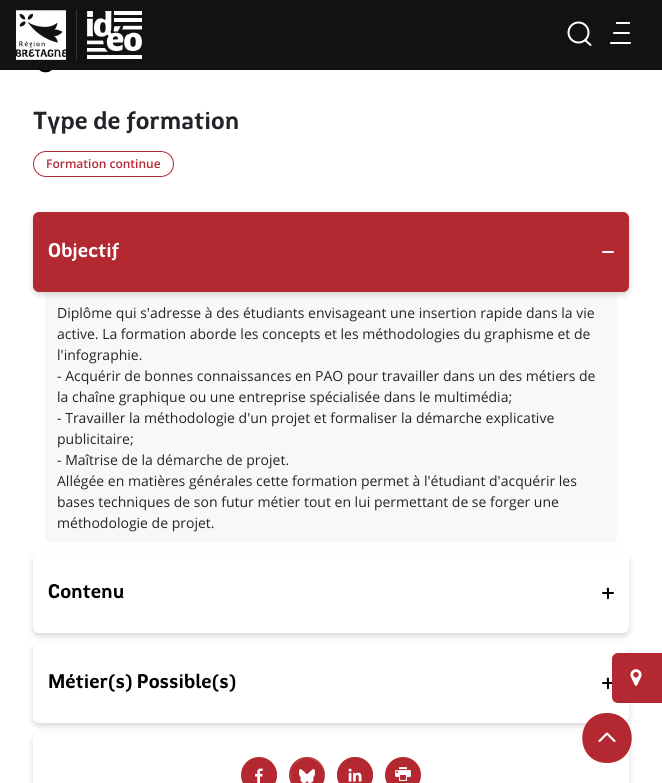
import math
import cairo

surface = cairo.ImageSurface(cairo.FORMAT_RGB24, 662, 783)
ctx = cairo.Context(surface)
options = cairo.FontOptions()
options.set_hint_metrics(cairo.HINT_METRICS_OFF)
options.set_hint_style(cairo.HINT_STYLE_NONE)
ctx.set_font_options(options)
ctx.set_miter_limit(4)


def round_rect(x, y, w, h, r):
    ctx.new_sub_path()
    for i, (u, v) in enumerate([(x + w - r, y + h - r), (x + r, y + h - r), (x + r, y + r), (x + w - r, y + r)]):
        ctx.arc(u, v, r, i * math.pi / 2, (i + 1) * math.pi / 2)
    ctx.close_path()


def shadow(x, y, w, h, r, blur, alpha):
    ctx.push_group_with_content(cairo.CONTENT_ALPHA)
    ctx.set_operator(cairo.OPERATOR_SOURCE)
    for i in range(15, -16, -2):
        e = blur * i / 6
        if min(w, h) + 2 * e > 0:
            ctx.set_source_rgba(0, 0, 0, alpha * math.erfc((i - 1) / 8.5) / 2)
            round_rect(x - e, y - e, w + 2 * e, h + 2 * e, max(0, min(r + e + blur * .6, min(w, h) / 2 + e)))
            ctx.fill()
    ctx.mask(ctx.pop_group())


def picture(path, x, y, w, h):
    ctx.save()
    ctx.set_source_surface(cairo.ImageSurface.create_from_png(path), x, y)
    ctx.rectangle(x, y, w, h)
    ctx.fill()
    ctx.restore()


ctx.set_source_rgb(1, 1, 1)
ctx.paint()
ctx.set_source_rgb(0.071, 0.071, 0.071)
ctx.rectangle(0, 0, 662, 70)
ctx.fill()
picture("img1.png", 16, 10, 50, 50)
ctx.set_source_rgb(0.2, 0.2, 0.2)
ctx.rectangle(76, 10, 1, 50)
ctx.fill()
picture("img2.png", 87, 11, 55, 48)
ctx.arc(578.5, 32.5, 10, 0, 2 * math.pi)
ctx.set_source_rgb(1, 1, 1)
ctx.stroke()
ctx.new_path()
ctx.move_to(585.5, 40.5)
ctx.line_to(590.5, 45)
ctx.set_line_cap(cairo.LINE_CAP_ROUND)
ctx.stroke()
round_rect(616, 22, 14, 2, 0.5)
ctx.fill()
round_rect(613, 32, 17, 2, 1)
ctx.fill()
round_rect(610, 42, 21, 2, 1)
ctx.fill()
picture("img3.png", 39, 70, 13, 3)
ctx.select_font_face("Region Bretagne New", cairo.FONT_SLANT_NORMAL, cairo.FONT_WEIGHT_BOLD)
ctx.set_font_size(25)
ctx.set_source_rgb(0.129, 0.145, 0.161)
ctx.move_to(33, 129)
ctx.show_text("Type de formation")
round_rect(33.5, 151.5, 140, 25, 12.5)
ctx.set_source_rgb(0.706, 0.157, 0.196)
ctx.set_line_width(1)
ctx.set_line_cap(cairo.LINE_CAP_BUTT)
ctx.stroke()
ctx.select_font_face("Open Sans SemiBold")
ctx.set_font_size(12)
ctx.move_to(46, 168)
ctx.show_text("Formation continue")
ctx.set_source_rgb(0.969, 0.969, 0.969)
ctx.new_path()
ctx.move_to(45, 292)
ctx.line_to(617, 292)
ctx.line_to(617, 537)
ctx.curve_to(617, 540.5, 614.5, 543, 611, 543)
ctx.line_to(51, 543)
ctx.curve_to(47.5, 543, 45, 540.5, 45, 537)
ctx.close_path()
ctx.fill()
ctx.set_source_rgb(0, 0, 0)
shadow(33, 215, 596, 80, 6, 3, 0.16)
ctx.set_source_rgb(0.706, 0.157, 0.196)
round_rect(33, 212, 596, 80, 6)
ctx.fill()
ctx.select_font_face("Region Bretagne New", cairo.FONT_SLANT_NORMAL, cairo.FONT_WEIGHT_BOLD)
ctx.set_font_size(20)
ctx.set_source_rgb(1, 1, 1)
ctx.move_to(48, 257)
ctx.show_text("Objectif")
round_rect(602, 251, 12, 2, 1)
ctx.fill()
ctx.select_font_face("Open Sans")
ctx.set_font_size(14)
ctx.set_source_rgb(0.129, 0.145, 0.161)
ctx.move_to(57, 318)
ctx.show_text("Diplôme qui s'adresse à des étudiants envisageant une insertion rapide dans la vie")
ctx.move_to(57, 339)
ctx.show_text("active. La formation aborde les concepts et les méthodologies du graphisme et de")
ctx.move_to(57, 360)
ctx.show_text("l'infographie.")
ctx.move_to(57, 381)
ctx.show_text("- Acquérir de bonnes connaissances en PAO pour travailler dans un des métiers de")
ctx.move_to(57, 402)
ctx.show_text("la chaîne graphique ou une entreprise spécialisée dans le multimédia;")
ctx.move_to(57, 423)
ctx.show_text("- Travailler la méthodologie d'un projet et formaliser la démarche explicative")
ctx.move_to(57, 444)
ctx.show_text("publicitaire;")
ctx.move_to(57, 465)
ctx.show_text("- Maîtrise de la démarche de projet.")
ctx.move_to(57, 486)
ctx.show_text("Allégée en matières générales cette formation permet à l'étudiant d'acquérir les")
ctx.move_to(57, 507)
ctx.show_text("bases techniques de son futur métier tout en lui permettant de se forger une")
ctx.move_to(57, 528)
ctx.show_text("méthodologie de projet.")
ctx.set_source_rgb(0, 0, 0)
shadow(33, 556, 596, 80, 6, 3, 0.16)
ctx.set_source_rgb(1, 1, 1)
round_rect(33, 553, 596, 80, 6)
ctx.fill()
ctx.select_font_face("Region Bretagne New", cairo.FONT_SLANT_NORMAL, cairo.FONT_WEIGHT_BOLD)
ctx.set_font_size(20)
ctx.set_source_rgb(0, 0, 0)
ctx.move_to(48, 598)
ctx.show_text("Contenu")
round_rect(602, 592, 12, 2, 1)
ctx.fill()
ctx.new_path()
ctx.move_to(609, 588.5)
ctx.line_to(609, 598.5)
ctx.line_to(608.5, 599)
ctx.curve_to(606.5, 600, 607, 597.5, 607, 596.5)
ctx.line_to(607, 591.5)
ctx.curve_to(607, 591, 606, 587.5, 608, 587.5)
ctx.curve_to(608.5, 587.5, 609, 588, 609, 588.5)
ctx.close_path()
ctx.fill()
ctx.set_source_rgb(0, 0, 0)
shadow(33, 646, 596, 80, 6, 3, 0.16)
ctx.set_source_rgb(1, 1, 1)
round_rect(33, 643, 596, 80, 6)
ctx.fill()
ctx.set_source_rgb(0, 0, 0)
ctx.move_to(48, 688)
ctx.show_text("Métier(s) Possible(s)")
round_rect(602, 682, 12, 2, 1)
ctx.fill()
ctx.new_path()
ctx.move_to(609, 678.5)
ctx.line_to(609, 688.5)
ctx.line_to(608.5, 689)
ctx.curve_to(606.5, 690, 607, 687.5, 607, 686.5)
ctx.line_to(607, 681.5)
ctx.curve_to(607, 681, 606, 677.5, 608, 677.5)
ctx.curve_to(608.5, 677.5, 609, 678, 609, 678.5)
ctx.close_path()
ctx.fill()
ctx.save()
ctx.set_fill_rule(cairo.FILL_RULE_EVEN_ODD)
ctx.new_path()
ctx.move_to(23, 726)
ctx.line_to(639, 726)
ctx.line_to(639, 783)
ctx.line_to(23, 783)
ctx.close_path()
ctx.move_to(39, 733)
ctx.line_to(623, 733)
ctx.curve_to(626.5, 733, 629, 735.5, 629, 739)
ctx.line_to(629, 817)
ctx.curve_to(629, 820.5, 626.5, 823, 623, 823)
ctx.line_to(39, 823)
ctx.curve_to(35.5, 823, 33, 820.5, 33, 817)
ctx.line_to(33, 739)
ctx.curve_to(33, 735.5, 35.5, 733, 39, 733)
ctx.close_path()
ctx.clip()
ctx.set_source_rgb(0, 0, 0)
shadow(33, 736, 596, 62, 6, 3, 0.16)
ctx.restore()
ctx.set_source_rgb(0.706, 0.157, 0.196)
ctx.arc(259, 775, 18, 0, 2 * math.pi)
ctx.fill()
picture("img4.png", 255, 761, 22, 22)
ctx.arc(307, 775, 18, 0, 2 * math.pi)
ctx.fill()
picture("img5.png", 290, 758, 35, 25)
ctx.arc(355, 775, 18, 0, 2 * math.pi)
ctx.fill()
picture("img6.png", 337, 757, 36, 26)
ctx.arc(403, 775, 18, 0, 2 * math.pi)
ctx.fill()
picture("img7.png", 395, 767, 16, 14)
round_rect(612, 653, 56, 50, 6)
ctx.fill()
picture("img8.png", 630, 669, 12, 17)
ctx.new_path()
ctx.move_to(607, 763)
ctx.curve_to(574, 763, 574, 713, 607, 713)
ctx.curve_to(640, 713, 640, 763, 607, 763)
ctx.close_path()
ctx.fill()
ctx.new_path()
ctx.move_to(614.5, 741)
ctx.line_to(607, 733.5)
ctx.line_to(599.5, 741)
ctx.set_source_rgb(1, 1, 1)
ctx.set_line_width(2.1)
ctx.set_line_cap(cairo.LINE_CAP_ROUND)
ctx.set_line_join(cairo.LINE_JOIN_ROUND)
ctx.stroke()
surface.write_to_png("page.png")
